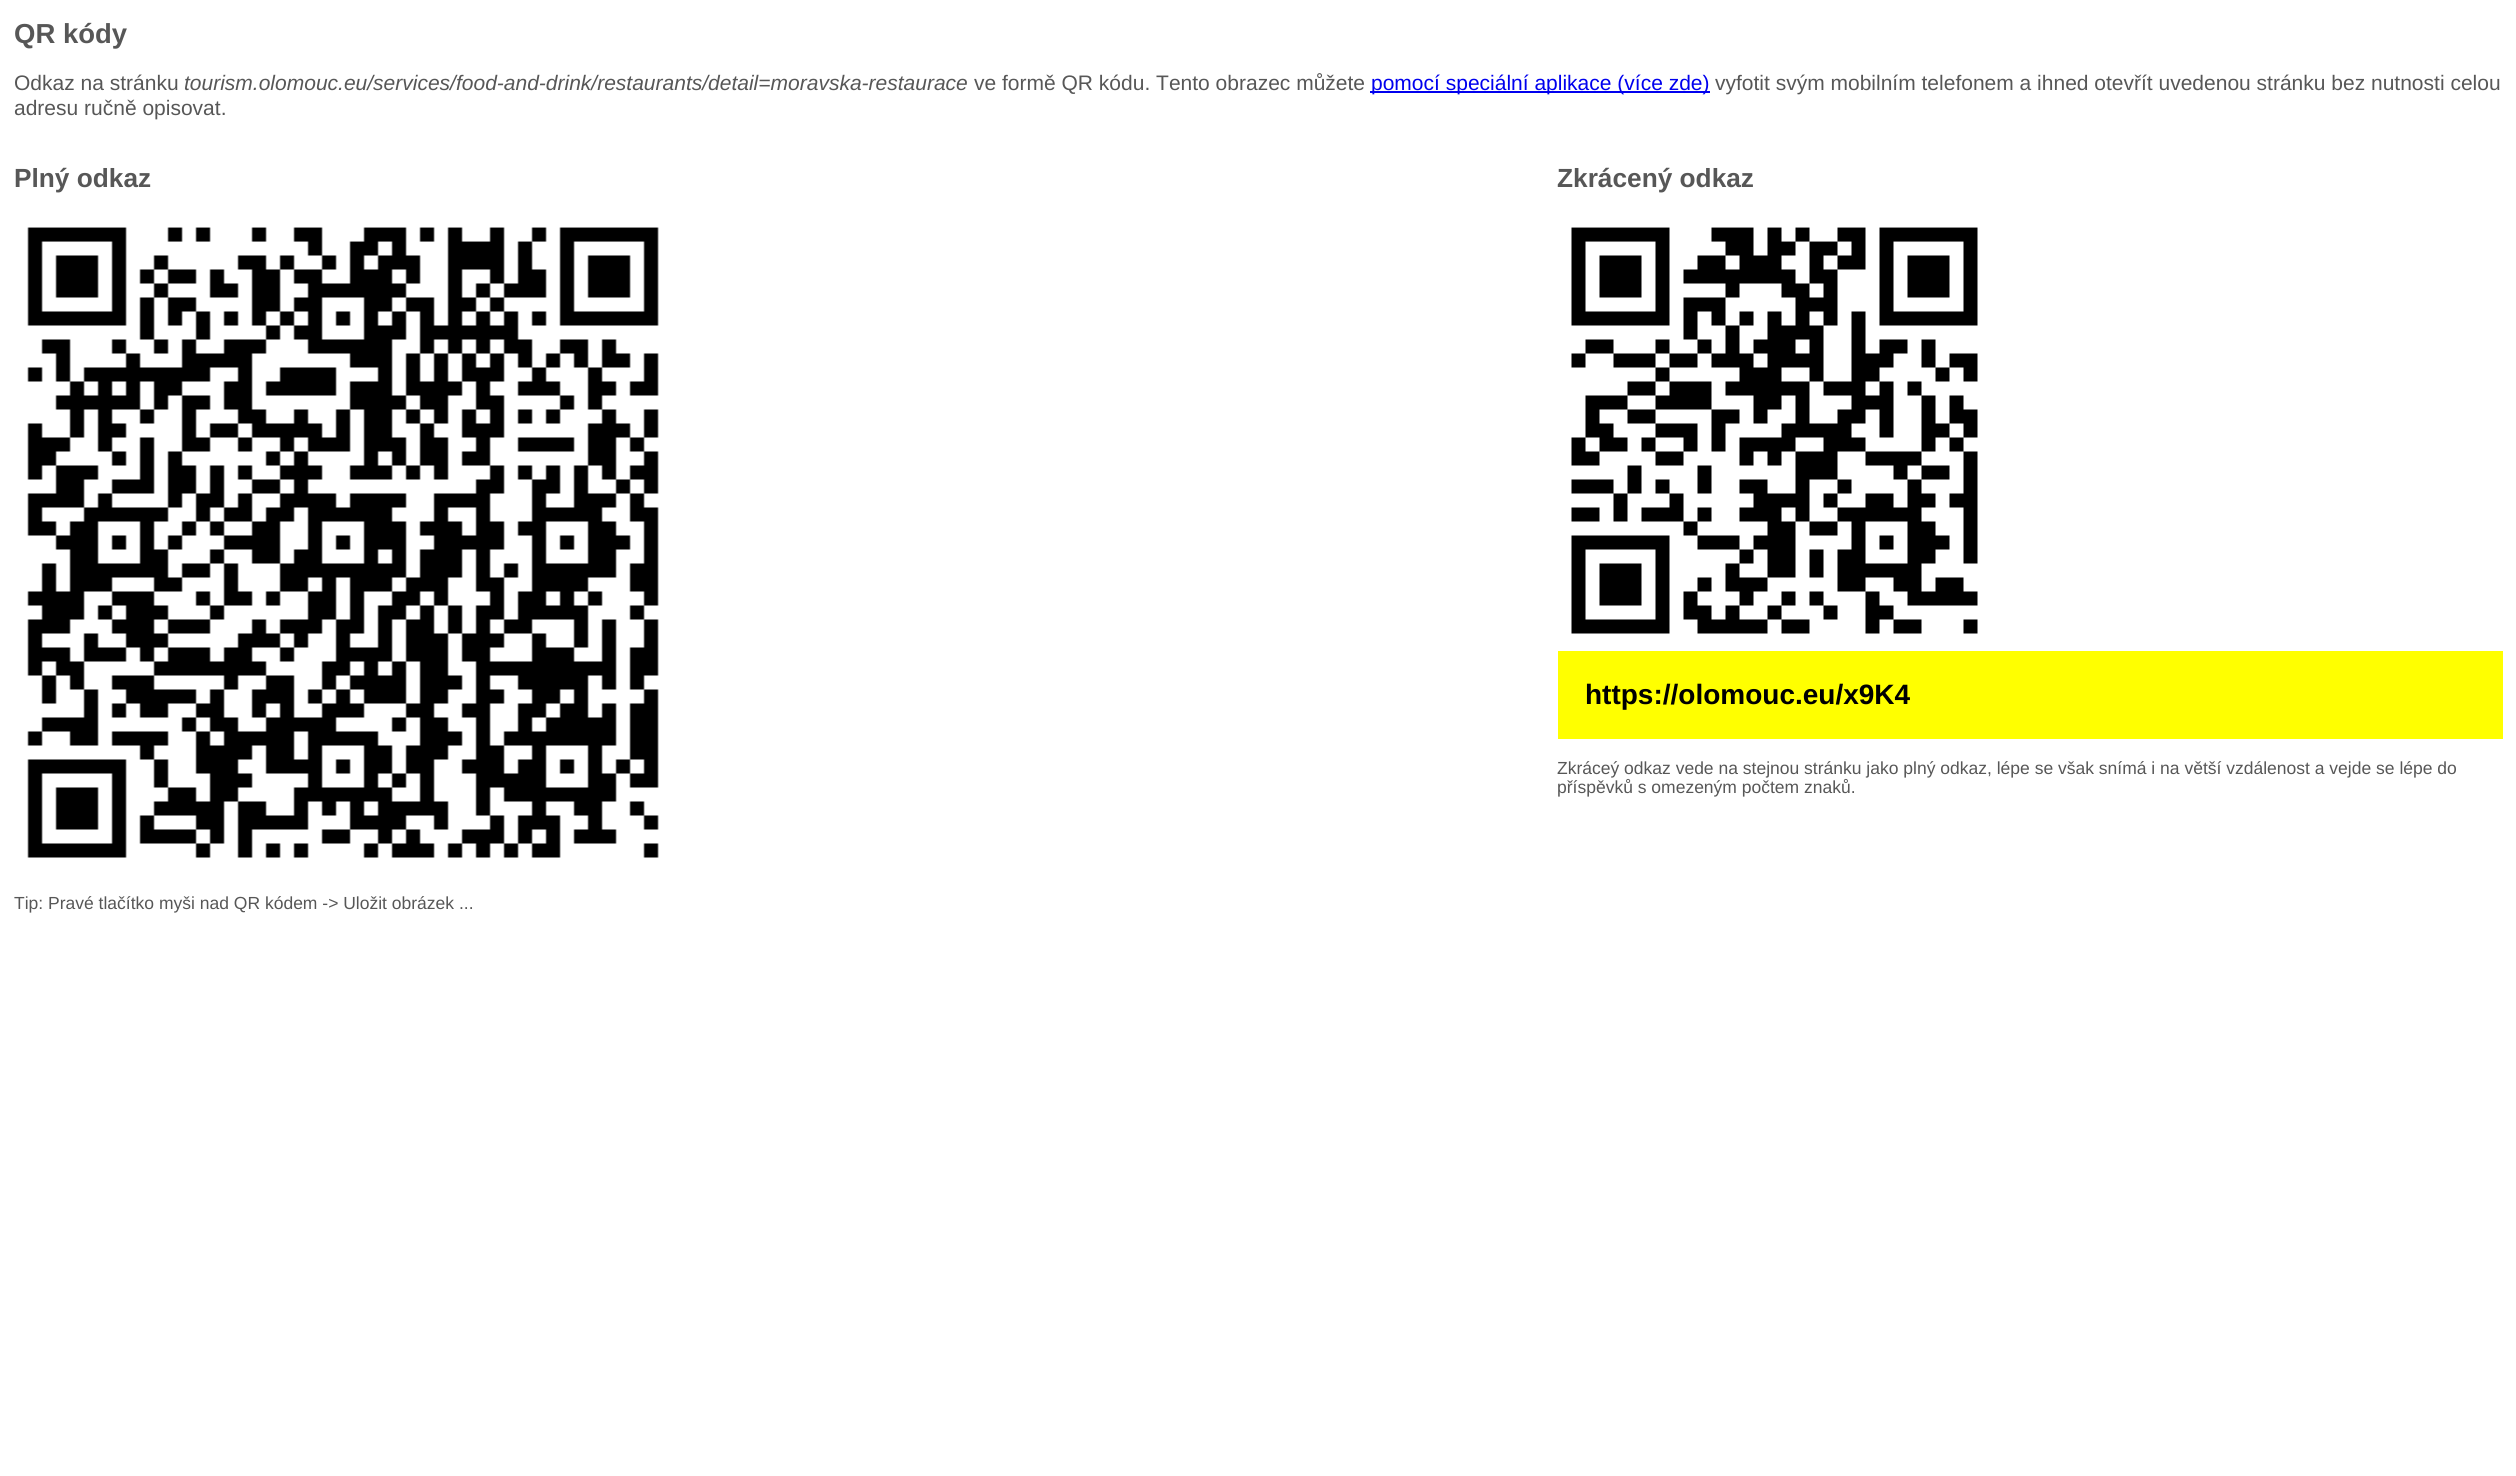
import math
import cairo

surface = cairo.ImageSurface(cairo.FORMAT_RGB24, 2516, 1476)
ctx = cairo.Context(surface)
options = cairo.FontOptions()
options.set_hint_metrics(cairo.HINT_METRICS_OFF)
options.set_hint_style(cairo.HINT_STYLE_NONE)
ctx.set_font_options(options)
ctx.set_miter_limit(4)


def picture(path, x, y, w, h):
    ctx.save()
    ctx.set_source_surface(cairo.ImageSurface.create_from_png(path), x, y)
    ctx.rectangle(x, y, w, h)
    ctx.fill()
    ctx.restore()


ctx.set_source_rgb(1, 1, 1)
ctx.paint()
ctx.select_font_face("Liberation Sans", cairo.FONT_SLANT_NORMAL, cairo.FONT_WEIGHT_BOLD)
ctx.set_font_size(27.5)
ctx.set_source_rgb(0.341, 0.341, 0.341)
ctx.move_to(14, 43)
ctx.show_text("QR kódy")
ctx.select_font_face("Liberation Sans")
ctx.set_font_size(21)
ctx.move_to(14, 90)
ctx.show_text("Odkaz na stránku")
ctx.select_font_face("Liberation Sans", cairo.FONT_SLANT_ITALIC)
ctx.move_to(184, 90)
ctx.show_text("tourism.olomouc.eu/services/food-and-drink/restaurants/detail=moravska-restaurace")
ctx.select_font_face("Liberation Sans")
ctx.move_to(974, 90)
ctx.show_text("ve formě QR kódu. Tento obrazec můžete")
ctx.set_source_rgb(0, 0, 0.933)
ctx.rectangle(1370, 91, 340, 2)
ctx.fill()
ctx.move_to(1371, 90)
ctx.show_text("pomocí speciální aplikace (více zde)")
ctx.set_source_rgb(0.341, 0.341, 0.341)
ctx.move_to(1715, 90)
ctx.show_text("vyfotit svým mobilním telefonem a ihned otevřít uvedenou stránku bez nutnosti celou")
ctx.move_to(14, 115)
ctx.show_text("adresu ručně opisovat.")
ctx.select_font_face("Liberation Sans", cairo.FONT_SLANT_NORMAL, cairo.FONT_WEIGHT_BOLD)
ctx.set_font_size(26.25)
ctx.move_to(14, 187)
ctx.show_text("Plný odkaz")
picture("img1.png", 27, 227, 632, 631)
ctx.select_font_face("Liberation Sans")
ctx.set_font_size(17.5)
ctx.move_to(14, 909)
ctx.show_text("Tip: Pravé tlačítko myši nad QR kódem -> Uložit obrázek ...")
ctx.select_font_face("Liberation Sans", cairo.FONT_SLANT_NORMAL, cairo.FONT_WEIGHT_BOLD)
ctx.set_font_size(26.25)
ctx.move_to(1557, 187)
ctx.show_text("Zkrácený odkaz")
picture("img2.png", 1571, 227, 407, 407)
ctx.set_source_rgb(1, 1, 0)
ctx.rectangle(1558, 651, 945, 88)
ctx.fill()
ctx.set_font_size(28)
ctx.set_source_rgb(0, 0, 0)
ctx.move_to(1585, 704)
ctx.show_text("https://olomouc.eu/x9K4")
ctx.select_font_face("Liberation Sans")
ctx.set_font_size(17.5)
ctx.set_source_rgb(0.341, 0.341, 0.341)
ctx.move_to(1557, 774)
ctx.show_text("Zkráceý odkaz vede na stejnou stránku jako plný odkaz, lépe se však snímá i na větší vzdálenost a vejde se lépe do")
ctx.move_to(1557, 793)
ctx.show_text("příspěvků s omezeným počtem znaků.")
surface.write_to_png("page.png")
